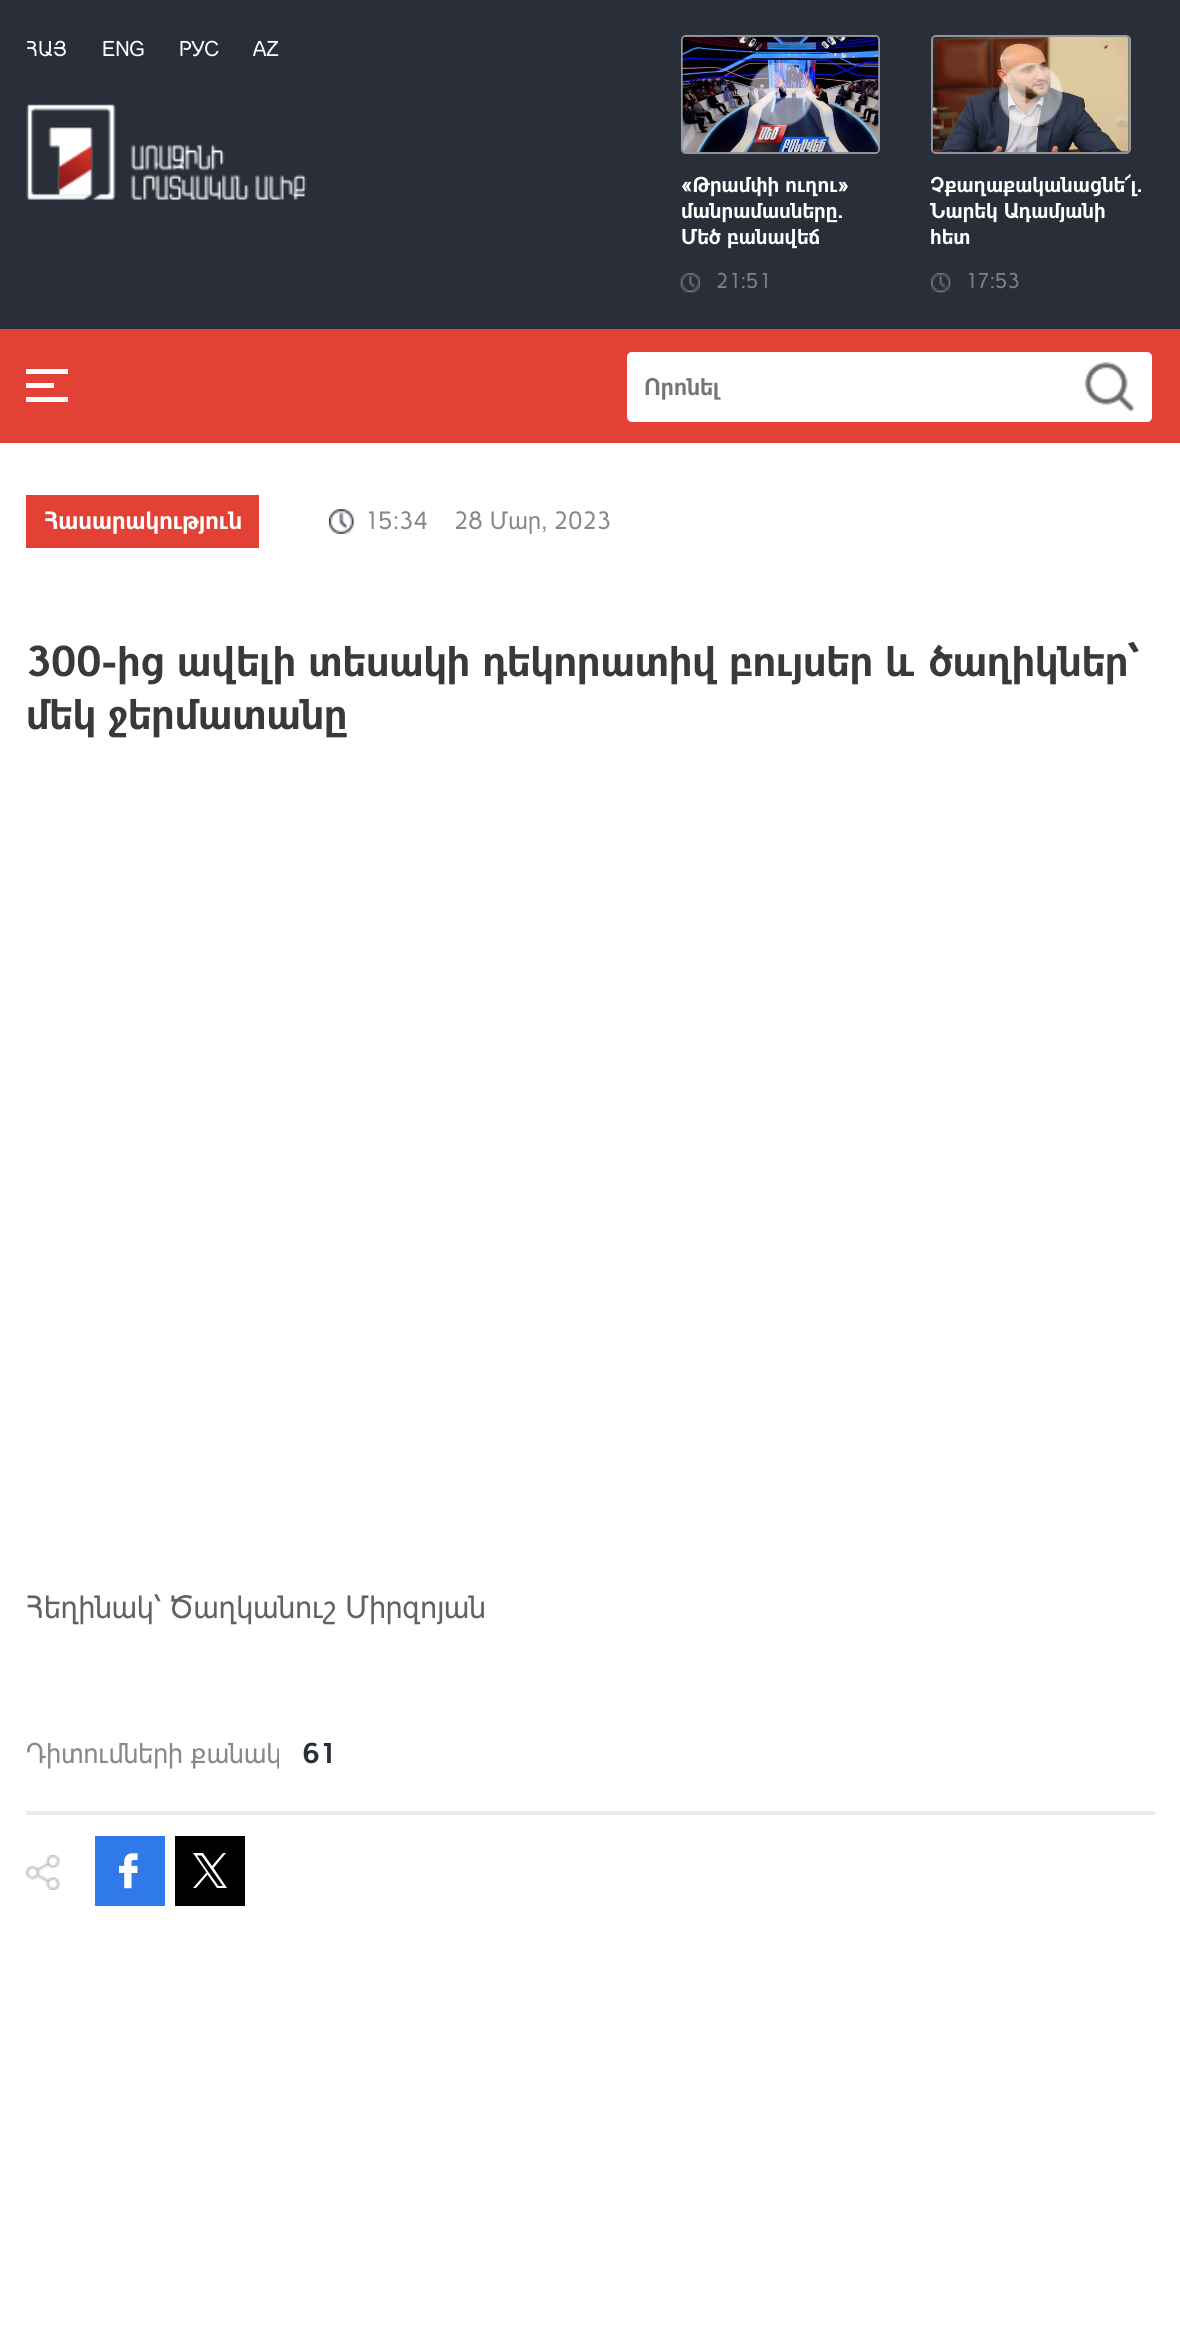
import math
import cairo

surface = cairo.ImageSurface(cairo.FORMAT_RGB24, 1180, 2351)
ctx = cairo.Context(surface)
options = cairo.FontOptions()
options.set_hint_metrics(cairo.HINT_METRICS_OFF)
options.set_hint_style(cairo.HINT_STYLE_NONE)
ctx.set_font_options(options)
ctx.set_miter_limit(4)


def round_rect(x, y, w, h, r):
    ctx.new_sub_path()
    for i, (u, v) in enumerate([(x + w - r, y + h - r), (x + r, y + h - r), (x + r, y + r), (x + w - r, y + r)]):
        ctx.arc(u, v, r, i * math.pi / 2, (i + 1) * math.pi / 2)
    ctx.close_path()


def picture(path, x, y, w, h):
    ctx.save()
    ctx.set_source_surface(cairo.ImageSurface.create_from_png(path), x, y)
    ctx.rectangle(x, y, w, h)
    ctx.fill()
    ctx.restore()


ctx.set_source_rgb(1, 1, 1)
ctx.paint()
ctx.set_source_rgb(0.161, 0.18, 0.224)
ctx.rectangle(0, 0, 1180, 329)
ctx.fill()
ctx.select_font_face("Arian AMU")
ctx.set_font_size(21)
ctx.set_source_rgb(1, 1, 1)
ctx.move_to(26, 56)
ctx.show_text("ՀԱՅ")
ctx.move_to(102, 56)
ctx.show_text("ENG")
ctx.move_to(179, 56)
ctx.show_text("РУС")
ctx.move_to(253, 56)
ctx.show_text("AZ")
picture("img1.png", 26, 104, 281, 96)
round_rect(682, 36, 197, 117, 4)
ctx.set_source_rgb(0.58, 0.592, 0.612)
ctx.stroke()
picture("img2.png", 682, 36, 197, 117)
picture("img3.png", 749, 63, 63, 63)
ctx.select_font_face("Arian AMU", cairo.FONT_SLANT_NORMAL, cairo.FONT_WEIGHT_BOLD)
ctx.set_source_rgb(1, 1, 1)
ctx.move_to(681, 192)
ctx.show_text("«Թրամփի ուղու»")
ctx.move_to(681, 218)
ctx.show_text("մանրամասները.")
ctx.move_to(681, 244)
ctx.show_text("Մեծ բանավեճ")
picture("img4.png", 680, 273, 20, 20)
ctx.select_font_face("Arian AMU")
ctx.set_source_rgb(0.498, 0.51, 0.533)
ctx.move_to(716, 288)
ctx.show_text("21:51")
round_rect(932, 36, 198, 117, 4)
ctx.set_source_rgb(0.58, 0.592, 0.612)
ctx.stroke()
picture("img5.png", 932, 36, 197, 117)
picture("img6.png", 999, 63, 64, 63)
ctx.select_font_face("Arian AMU", cairo.FONT_SLANT_NORMAL, cairo.FONT_WEIGHT_BOLD)
ctx.set_source_rgb(1, 1, 1)
ctx.move_to(930, 192)
ctx.show_text("Չքաղաքականացնե՜լ.")
ctx.move_to(930, 218)
ctx.show_text("Նարեկ Ադամյանի")
ctx.move_to(930, 244)
ctx.show_text("հետ")
picture("img7.png", 931, 273, 20, 20)
ctx.select_font_face("Arian AMU")
ctx.set_source_rgb(0.498, 0.51, 0.533)
ctx.move_to(965, 288)
ctx.show_text("17:53")
ctx.set_source_rgb(0.89, 0.255, 0.208)
ctx.rectangle(0, 329, 1180, 114)
ctx.fill()
ctx.set_source_rgb(1, 1, 1)
ctx.rectangle(26, 369, 42, 5)
ctx.fill()
ctx.rectangle(26, 383, 28, 5)
ctx.fill()
ctx.rectangle(26, 397, 42, 5)
ctx.fill()
round_rect(627, 352, 525, 70, 5)
ctx.fill()
ctx.select_font_face("Arian AMU", cairo.FONT_SLANT_NORMAL, cairo.FONT_WEIGHT_BOLD)
ctx.set_font_size(23.5)
ctx.set_source_rgb(0.459, 0.459, 0.459)
ctx.move_to(644, 395)
ctx.show_text("Որոնել")
picture("img8.png", 1085, 362, 49, 50)
ctx.set_source_rgb(0.89, 0.255, 0.208)
ctx.rectangle(26, 495, 233, 53)
ctx.fill()
ctx.set_font_size(24.5)
ctx.set_source_rgb(1, 1, 1)
ctx.move_to(44, 529)
ctx.show_text("Հասարակություն")
picture("img9.png", 329, 509, 25, 25)
ctx.select_font_face("Arian AMU")
ctx.set_source_rgb(0.533, 0.533, 0.533)
ctx.move_to(364, 529)
ctx.show_text("15:34")
ctx.move_to(454, 529)
ctx.show_text("28 Մար, 2023")
ctx.select_font_face("Arian AMU", cairo.FONT_SLANT_NORMAL, cairo.FONT_WEIGHT_BOLD)
ctx.set_font_size(42)
ctx.set_source_rgb(0.224, 0.224, 0.224)
ctx.move_to(26, 676)
ctx.show_text("300-ից ավելի տեսակի դեկորատիվ բույսեր և ծաղիկներ՝")
ctx.move_to(26, 729)
ctx.show_text("մեկ ջերմատանը")
ctx.select_font_face("Arian AMU")
ctx.set_font_size(31.5)
ctx.set_source_rgb(0.38, 0.38, 0.38)
ctx.move_to(26, 1618)
ctx.show_text("Հեղինակ՝ Ծաղկանուշ Միրզոյան")
ctx.set_source_rgb(0.918, 0.918, 0.922)
ctx.rectangle(26, 1811, 1129, 4)
ctx.fill()
ctx.set_font_size(28)
ctx.set_source_rgb(0.533, 0.533, 0.533)
ctx.move_to(26, 1763)
ctx.show_text("Դիտումների քանակ")
ctx.select_font_face("Arian AMU", cairo.FONT_SLANT_NORMAL, cairo.FONT_WEIGHT_BOLD)
ctx.set_source_rgb(0.161, 0.18, 0.224)
ctx.move_to(302, 1763)
ctx.show_text("61")
picture("img10.png", 26, 1855, 34, 35)
picture("img11.png", 95, 1836, 70, 70)
ctx.set_source_rgb(0, 0, 0)
ctx.rectangle(175, 1836, 70, 70)
ctx.fill()
ctx.set_source_rgb(1, 1, 1)
ctx.new_path()
ctx.move_to(213.5, 1868)
ctx.line_to(226, 1853)
ctx.line_to(223, 1853)
ctx.line_to(212, 1866)
ctx.line_to(203, 1853)
ctx.line_to(193, 1853)
ctx.line_to(206.5, 1872.5)
ctx.line_to(193, 1888)
ctx.line_to(196, 1888)
ctx.line_to(207.5, 1874.5)
ctx.line_to(217, 1888)
ctx.line_to(227, 1888)
ctx.close_path()
ctx.move_to(209, 1873)
ctx.line_to(197, 1855.5)
ctx.line_to(201.5, 1855.5)
ctx.line_to(223, 1886)
ctx.line_to(218.5, 1886)
ctx.close_path()
ctx.fill()
surface.write_to_png("page.png")
